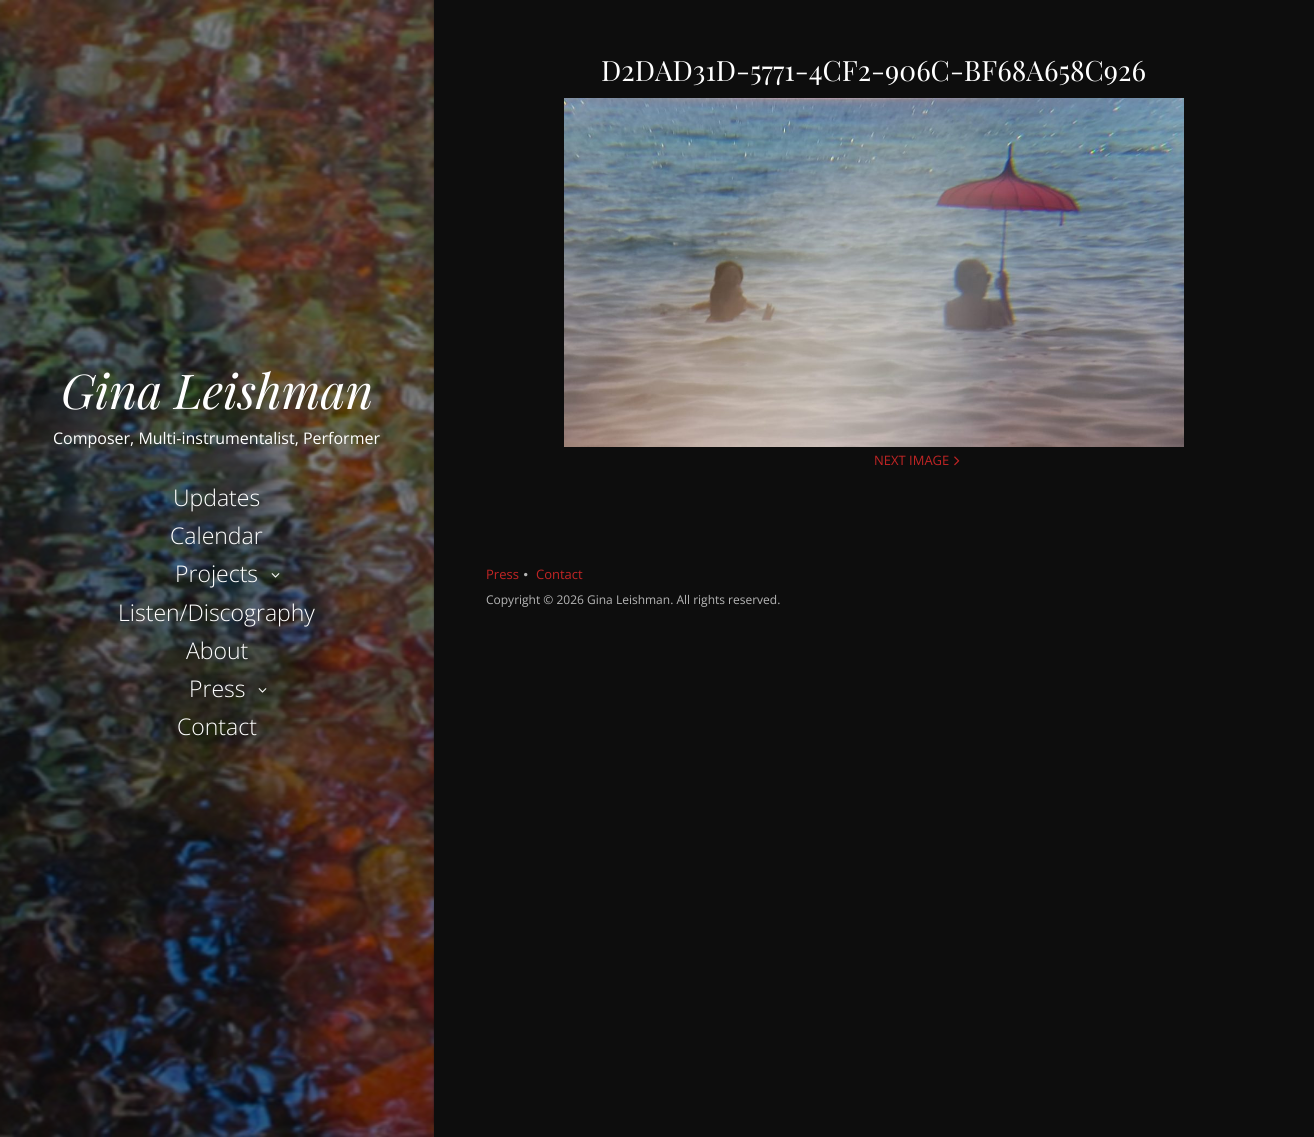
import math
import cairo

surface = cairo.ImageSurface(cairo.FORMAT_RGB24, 1314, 1137)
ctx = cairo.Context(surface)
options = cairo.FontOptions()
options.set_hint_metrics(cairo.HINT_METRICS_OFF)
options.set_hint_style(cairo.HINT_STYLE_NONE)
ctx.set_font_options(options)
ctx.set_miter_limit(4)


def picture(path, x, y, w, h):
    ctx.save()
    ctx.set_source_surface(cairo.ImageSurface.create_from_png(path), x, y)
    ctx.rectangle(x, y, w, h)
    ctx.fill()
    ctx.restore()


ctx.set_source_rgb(0.051, 0.051, 0.051)
ctx.paint()
picture("img1.png", 0, 0, 434, 1137)
ctx.select_font_face("Playfair Display", cairo.FONT_SLANT_ITALIC)
ctx.set_font_size(48)
ctx.set_source_rgb(1, 1, 1)
ctx.move_to(61, 409)
ctx.show_text("Gina Leishman")
ctx.select_font_face("Open Sans")
ctx.set_font_size(16)
ctx.move_to(53, 444)
ctx.show_text("Composer, Multi-instrumentalist, Performer")
ctx.select_font_face("Open Sans Light")
ctx.set_font_size(23)
ctx.move_to(173, 506)
ctx.show_text("Updates")
ctx.move_to(170, 544)
ctx.show_text("Calendar")
ctx.move_to(175, 582)
ctx.show_text("Projects")
picture("img2.png", 271, 573, 9, 5)
ctx.move_to(118, 621)
ctx.show_text("Listen/Discography")
ctx.move_to(186, 659)
ctx.show_text("About")
ctx.move_to(189, 697)
ctx.show_text("Press")
picture("img3.png", 258, 688, 9, 5)
ctx.move_to(177, 735)
ctx.show_text("Contact")
ctx.select_font_face("Playfair Display")
ctx.set_font_size(28)
ctx.move_to(601, 81)
ctx.show_text("D2DAD31D-5771-4CF2-906C-BF68A658C926")
picture("img4.png", 564, 98, 620, 349)
ctx.select_font_face("Open Sans")
ctx.set_font_size(13)
ctx.set_source_rgb(0.757, 0.141, 0.141)
ctx.move_to(874, 465)
ctx.show_text("NEXT IMAGE")
picture("img5.png", 954, 456, 6, 10)
ctx.move_to(486, 579)
ctx.show_text("Press")
picture("img6.png", 524, 572, 4, 5)
ctx.move_to(536, 579)
ctx.show_text("Contact")
ctx.set_font_size(12)
ctx.set_source_rgb(0.71, 0.71, 0.71)
ctx.move_to(486, 604)
ctx.show_text("Copyright © 2026 Gina Leishman. All rights reserved.")
surface.write_to_png("page.png")
